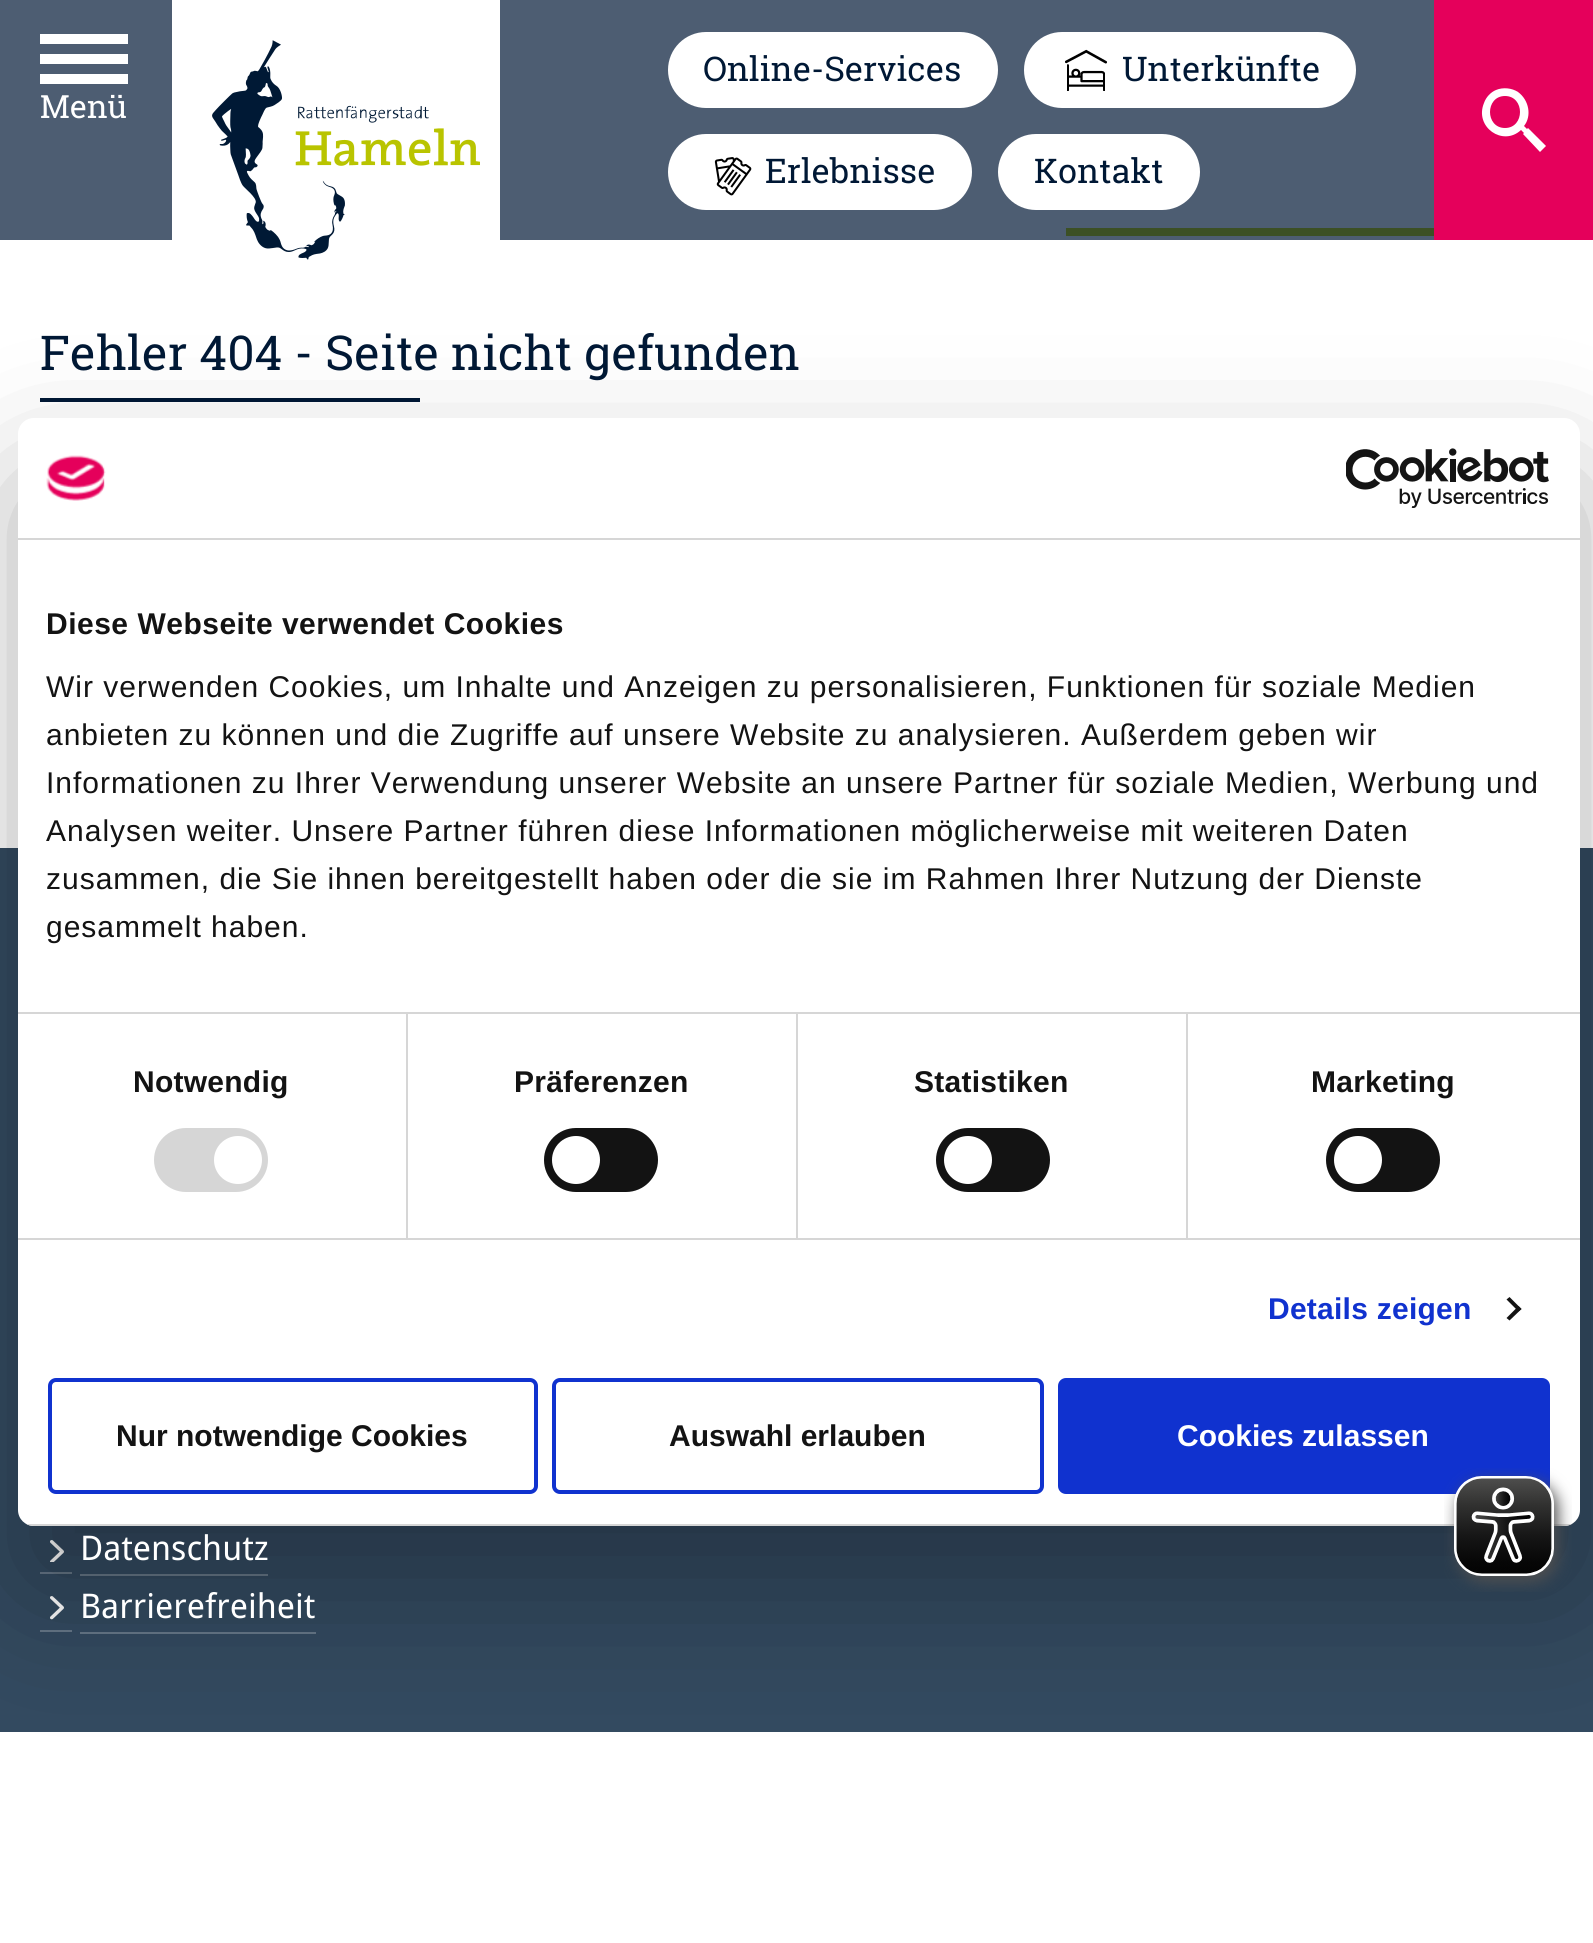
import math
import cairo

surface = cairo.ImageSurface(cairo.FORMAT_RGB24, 1593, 1943)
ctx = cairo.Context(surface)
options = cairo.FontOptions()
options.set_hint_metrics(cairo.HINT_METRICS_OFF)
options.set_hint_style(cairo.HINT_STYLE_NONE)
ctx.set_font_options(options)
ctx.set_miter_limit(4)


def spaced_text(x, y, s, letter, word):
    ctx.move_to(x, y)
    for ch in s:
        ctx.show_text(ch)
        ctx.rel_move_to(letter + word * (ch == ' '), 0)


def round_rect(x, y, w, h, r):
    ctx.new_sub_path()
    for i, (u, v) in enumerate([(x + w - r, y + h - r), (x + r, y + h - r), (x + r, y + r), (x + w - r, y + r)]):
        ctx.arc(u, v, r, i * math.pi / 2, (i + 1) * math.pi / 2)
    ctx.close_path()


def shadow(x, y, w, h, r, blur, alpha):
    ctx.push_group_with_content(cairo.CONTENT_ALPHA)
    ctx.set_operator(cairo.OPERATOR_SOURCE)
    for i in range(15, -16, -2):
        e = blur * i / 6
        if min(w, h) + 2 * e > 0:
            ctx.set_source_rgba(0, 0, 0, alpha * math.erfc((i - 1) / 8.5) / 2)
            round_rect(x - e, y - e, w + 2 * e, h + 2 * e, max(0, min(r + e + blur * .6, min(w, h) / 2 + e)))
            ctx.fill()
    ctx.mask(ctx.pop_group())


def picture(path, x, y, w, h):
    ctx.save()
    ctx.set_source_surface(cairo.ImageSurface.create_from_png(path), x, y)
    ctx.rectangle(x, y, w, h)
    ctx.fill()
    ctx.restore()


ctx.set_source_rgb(1, 1, 1)
ctx.paint()
ctx.set_source_rgb(0.302, 0.365, 0.447)
ctx.rectangle(0, 0, 1434, 240)
ctx.fill()
ctx.set_source_rgb(1, 1, 1)
ctx.rectangle(40, 34, 88, 10)
ctx.fill()
ctx.rectangle(40, 54, 88, 10)
ctx.fill()
ctx.rectangle(40, 74, 88, 10)
ctx.fill()
ctx.select_font_face("Roboto Slab")
ctx.set_font_size(32)
ctx.move_to(40, 118)
ctx.show_text("Menü")
ctx.rectangle(172, 0, 328, 240)
ctx.fill()
picture("img1.png", 212, 40, 268, 220)
ctx.set_source_rgb(0.898, 0, 0.357)
ctx.rectangle(1434, 0, 159, 240)
ctx.fill()
ctx.set_source_rgb(1, 1, 1)
ctx.new_path()
ctx.move_to(1528, 128)
ctx.line_to(1527, 129)
ctx.line_to(1524, 126)
ctx.curve_to(1532, 116, 1529, 100, 1518, 92)
ctx.curve_to(1512, 88, 1503, 87, 1496, 90)
ctx.curve_to(1491, 92, 1486, 97, 1484, 103)
ctx.curve_to(1474, 127, 1503, 147, 1521, 130)
ctx.line_to(1524, 133)
ctx.line_to(1523, 134)
ctx.line_to(1540, 152)
ctx.line_to(1546, 146)
ctx.close_path()
ctx.move_to(1505, 128)
ctx.curve_to(1485, 128, 1485, 96, 1505, 96)
ctx.curve_to(1525, 96, 1525, 128, 1505, 128)
ctx.close_path()
ctx.fill()
round_rect(668, 32, 330, 76, 38)
ctx.fill()
ctx.set_font_size(34)
ctx.set_source_rgb(0, 0.094, 0.208)
ctx.move_to(703, 81)
ctx.show_text("Online-Services")
ctx.set_source_rgb(1, 1, 1)
round_rect(1024, 32, 332, 76, 38)
ctx.fill()
picture("img2.png", 1065, 49, 42, 42)
ctx.set_source_rgb(0, 0.094, 0.208)
ctx.move_to(1122, 81)
ctx.show_text("Unterkünfte")
ctx.set_source_rgb(1, 1, 1)
round_rect(668, 134, 304, 76, 38)
ctx.fill()
picture("img3.png", 714, 157, 38, 39)
ctx.set_source_rgb(0, 0.094, 0.208)
ctx.move_to(765, 183)
ctx.show_text("Erlebnisse")
ctx.set_source_rgb(1, 1, 1)
round_rect(998, 134, 202, 76, 38)
ctx.fill()
ctx.set_source_rgb(0, 0.094, 0.208)
ctx.move_to(1034, 183)
ctx.show_text("Kontakt")
ctx.set_source_rgb(0.235, 0.314, 0.145)
ctx.rectangle(1066, 228, 368, 8)
ctx.fill()
ctx.set_font_size(48)
ctx.set_source_rgb(0, 0.094, 0.208)
ctx.move_to(40, 370)
ctx.show_text("Fehler 404 - Seite nicht gefunden")
ctx.rectangle(40, 398, 380, 4)
ctx.fill()
ctx.set_source_rgb(0.2, 0.29, 0.376)
ctx.rectangle(0, 848, 1593, 884)
ctx.fill()
ctx.set_source_rgb(0.4, 0.467, 0.533)
ctx.rectangle(40, 1572, 32, 2)
ctx.fill()
ctx.rectangle(80, 1574, 188, 2)
ctx.fill()
picture("img6.png", 50, 1540, 14, 22)
ctx.rectangle(40, 1630, 32, 2)
ctx.fill()
ctx.rectangle(80, 1632, 236, 2)
ctx.fill()
picture("img7.png", 50, 1596, 14, 24)
ctx.set_source_rgb(0, 0, 0)
shadow(18, 482, 1562, 1108, 16, 68, 0.3)
ctx.set_source_rgb(1, 1, 1)
round_rect(18, 418, 1562, 1108, 16)
ctx.fill()
ctx.set_source_rgb(0.839, 0.839, 0.839)
ctx.rectangle(18, 538, 1562, 2)
ctx.fill()
picture("img4.png", 46, 455, 60, 46)
picture("img5.png", 1346, 448, 203, 60)
ctx.rectangle(18, 1012, 1562, 2)
ctx.fill()
ctx.select_font_face("Liberation Sans", cairo.FONT_SLANT_NORMAL, cairo.FONT_WEIGHT_BOLD)
ctx.set_font_size(30)
ctx.set_source_rgb(0.078, 0.078, 0.078)
spaced_text(46, 634, "Diese Webseite verwendet Cookies", 0.5, 0)
ctx.select_font_face("Liberation Sans")
spaced_text(46, 697, "Wir verwenden Cookies, um Inhalte und Anzeigen zu personalisieren, Funktionen für soziale Medien", 1, 0)
spaced_text(46, 745, "anbieten zu können und die Zugriffe auf unsere Website zu analysieren. Außerdem geben wir", 1, 0)
spaced_text(46, 793, "Informationen zu Ihrer Verwendung unserer Website an unsere Partner für soziale Medien, Werbung und", 1, 0)
spaced_text(46, 841, "Analysen weiter. Unsere Partner führen diese Informationen möglicherweise mit weiteren Daten", 1, 0)
spaced_text(46, 889, "zusammen, die Sie ihnen bereitgestellt haben oder die sie im Rahmen Ihrer Nutzung der Dienste", 1, 0)
spaced_text(46, 937, "gesammelt haben.", 1, 0)
ctx.set_source_rgb(0.839, 0.839, 0.839)
ctx.rectangle(18, 1238, 1562, 2)
ctx.fill()
ctx.rectangle(406, 1014, 2, 224)
ctx.fill()
ctx.select_font_face("Liberation Sans", cairo.FONT_SLANT_NORMAL, cairo.FONT_WEIGHT_BOLD)
ctx.set_source_rgb(0.078, 0.078, 0.078)
spaced_text(133, 1092, "Notwendig", 0.25, 0)
ctx.set_source_rgb(0.839, 0.839, 0.839)
round_rect(154, 1128, 114, 64, 32)
ctx.fill()
ctx.set_source_rgb(1, 1, 1)
ctx.arc(238, 1160, 24, 0, 2 * math.pi)
ctx.fill()
ctx.set_source_rgb(0.839, 0.839, 0.839)
ctx.rectangle(796, 1014, 2, 224)
ctx.fill()
ctx.set_source_rgb(0.078, 0.078, 0.078)
spaced_text(514, 1092, "Präferenzen", 0.25, 0)
round_rect(544, 1128, 114, 64, 32)
ctx.fill()
ctx.set_source_rgb(1, 1, 1)
ctx.arc(576, 1160, 24, 0, 2 * math.pi)
ctx.fill()
ctx.set_source_rgb(0.839, 0.839, 0.839)
ctx.rectangle(1186, 1014, 2, 224)
ctx.fill()
ctx.set_source_rgb(0.078, 0.078, 0.078)
spaced_text(914, 1092, "Statistiken", 0.25, 0)
round_rect(936, 1128, 114, 64, 32)
ctx.fill()
ctx.set_source_rgb(1, 1, 1)
ctx.arc(968, 1160, 24, 0, 2 * math.pi)
ctx.fill()
ctx.set_source_rgb(0.078, 0.078, 0.078)
spaced_text(1311, 1092, "Marketing", 0.25, 0)
round_rect(1326, 1128, 114, 64, 32)
ctx.fill()
ctx.set_source_rgb(1, 1, 1)
ctx.arc(1358, 1160, 24, 0, 2 * math.pi)
ctx.fill()
ctx.set_source_rgb(0.063, 0.196, 0.812)
spaced_text(1268, 1319, "Details zeigen", 0.25, 0)
ctx.set_source_rgb(0.078, 0.078, 0.078)
ctx.new_path()
ctx.move_to(1509.5, 1297)
ctx.line_to(1521.5, 1309)
ctx.line_to(1518.5, 1311.5)
ctx.line_to(1506.5, 1299.5)
ctx.close_path()
ctx.fill()
ctx.new_path()
ctx.move_to(1518.5, 1306)
ctx.line_to(1521.5, 1309)
ctx.line_to(1509.5, 1320.5)
ctx.line_to(1506.5, 1318)
ctx.close_path()
ctx.fill()
ctx.save()
round_rect(18, 418, 1562, 1108, 16)
ctx.clip()
ctx.set_source_rgb(0.839, 0.839, 0.839)
ctx.rectangle(18, 1524, 1562, 2)
ctx.fill()
ctx.restore()
round_rect(50, 1380, 486, 112, 6)
ctx.set_source_rgb(0.063, 0.196, 0.812)
ctx.set_line_width(4)
ctx.stroke()
ctx.set_source_rgb(0.078, 0.078, 0.078)
ctx.move_to(116, 1446)
ctx.show_text("Nur notwendige Cookies")
round_rect(554, 1380, 488, 112, 6)
ctx.set_source_rgb(0.063, 0.196, 0.812)
ctx.stroke()
ctx.set_source_rgb(0.078, 0.078, 0.078)
ctx.move_to(669, 1446)
ctx.show_text("Auswahl erlauben")
ctx.set_source_rgb(0.063, 0.196, 0.812)
round_rect(1060, 1380, 488, 112, 6)
ctx.fill_preserve()
ctx.stroke()
ctx.set_source_rgb(1, 1, 1)
ctx.move_to(1177, 1446)
ctx.show_text("Cookies zulassen")
ctx.select_font_face("Droid Sans")
ctx.set_font_size(34)
ctx.move_to(80, 1560)
ctx.show_text("Datenschutz")
ctx.move_to(80, 1618)
ctx.show_text("Barrierefreiheit")
picture("img8.png", 1444, 1468, 128, 124)
surface.write_to_png("page.png")
